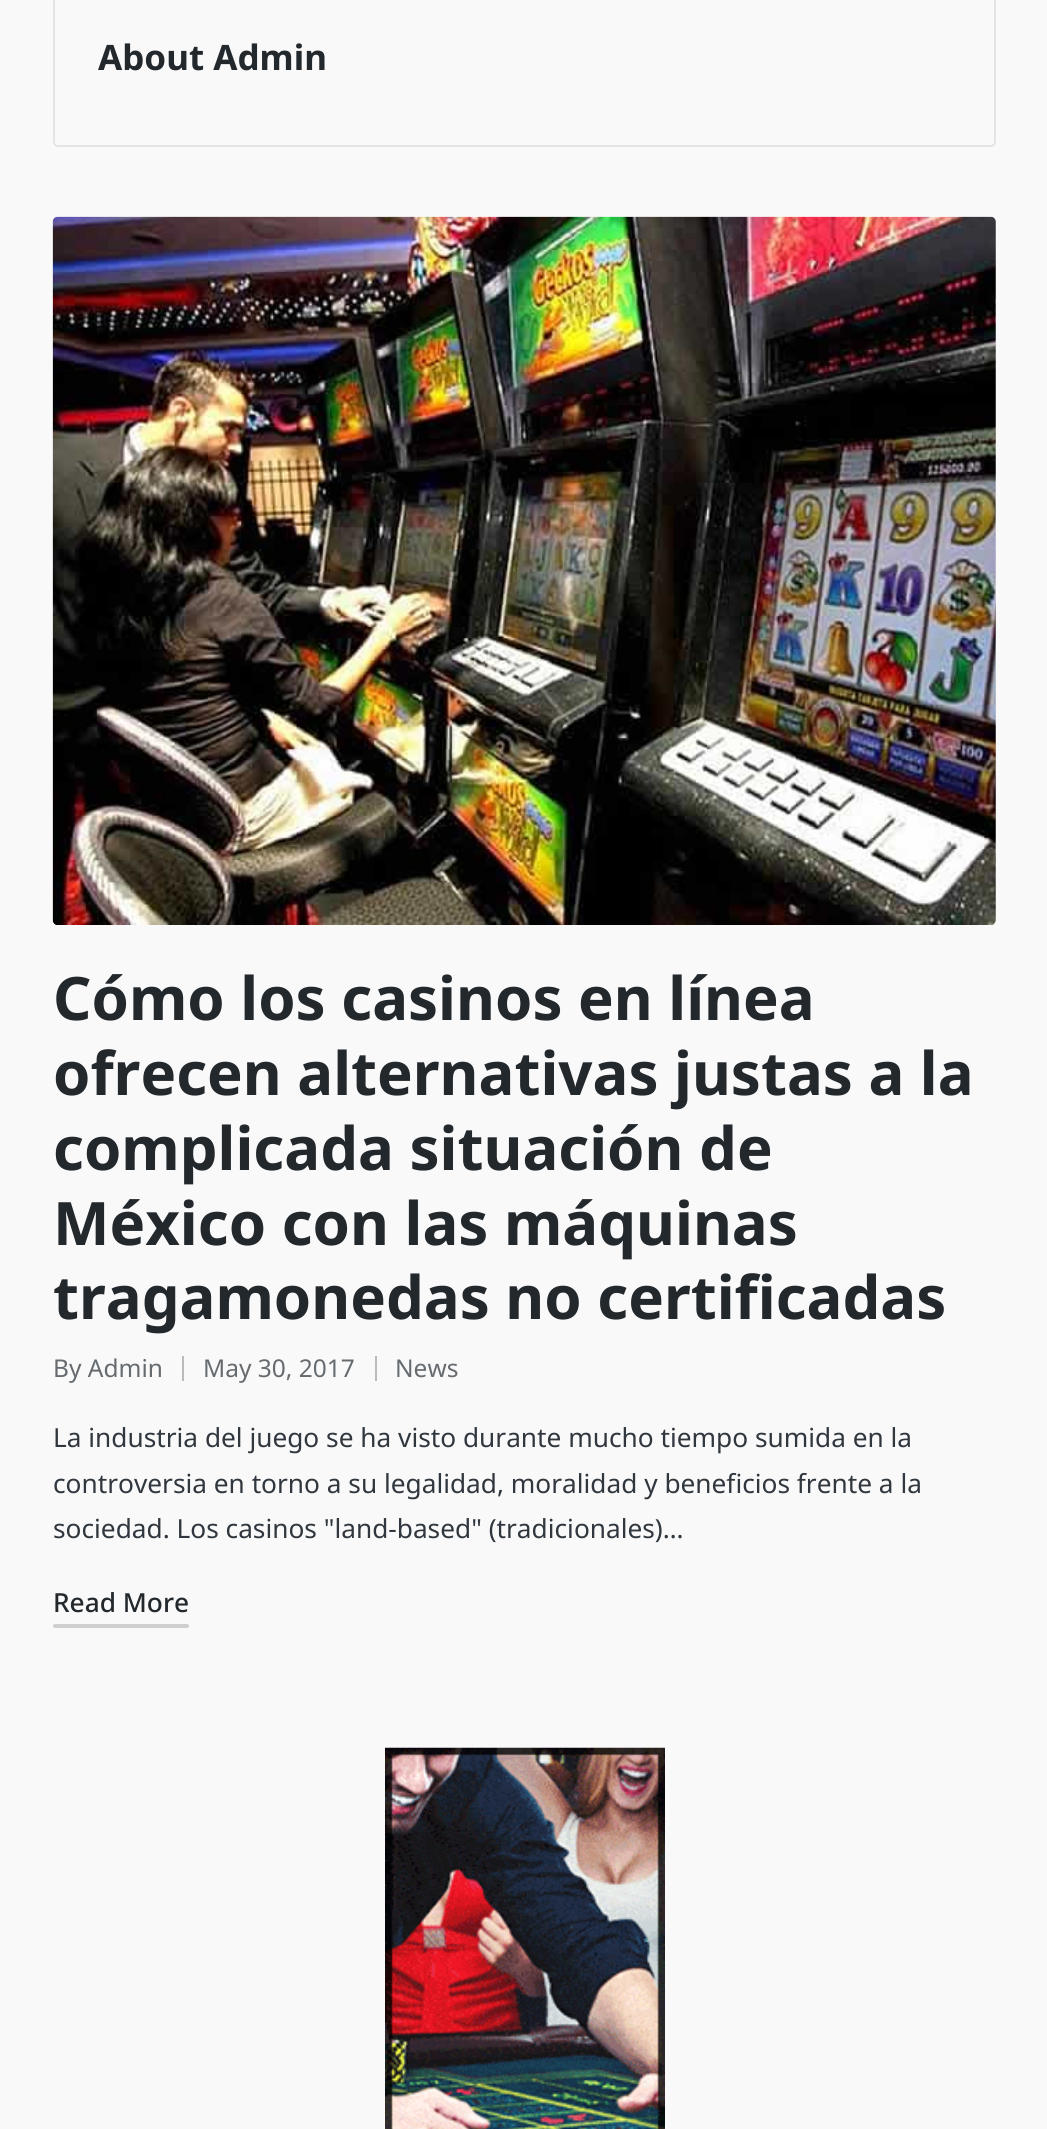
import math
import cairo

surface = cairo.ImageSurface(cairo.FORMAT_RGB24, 1047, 2129)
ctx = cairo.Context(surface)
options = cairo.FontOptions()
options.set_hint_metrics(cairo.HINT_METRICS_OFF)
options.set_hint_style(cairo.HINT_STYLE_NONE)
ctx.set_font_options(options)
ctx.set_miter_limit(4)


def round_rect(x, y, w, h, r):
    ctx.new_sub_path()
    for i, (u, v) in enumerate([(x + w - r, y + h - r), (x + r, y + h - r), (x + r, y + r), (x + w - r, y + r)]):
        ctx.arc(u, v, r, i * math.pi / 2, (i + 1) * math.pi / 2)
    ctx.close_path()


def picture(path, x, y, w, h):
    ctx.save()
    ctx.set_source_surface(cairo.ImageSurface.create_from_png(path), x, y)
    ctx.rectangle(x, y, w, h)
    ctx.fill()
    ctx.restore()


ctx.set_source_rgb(0.976, 0.976, 0.976)
ctx.paint()
round_rect(54, -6, 941, 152, 4)
ctx.set_source_rgb(0.894, 0.894, 0.894)
ctx.stroke()
ctx.select_font_face("Noto Sans", cairo.FONT_SLANT_NORMAL, cairo.FONT_WEIGHT_BOLD)
ctx.set_font_size(35)
ctx.set_source_rgb(0.137, 0.157, 0.176)
ctx.move_to(98, 70)
ctx.show_text("About Admin")
picture("img1.png", 52, 216, 944, 709)
ctx.set_font_size(59.9)
ctx.move_to(53, 1020)
ctx.show_text("Cómo los casinos en línea")
ctx.move_to(53, 1095)
ctx.show_text("ofrecen alternativas justas a la")
ctx.move_to(53, 1170)
ctx.show_text("complicada situación de")
ctx.move_to(53, 1245)
ctx.show_text("México con las máquinas")
ctx.move_to(53, 1319)
ctx.show_text("tragamonedas no certificadas")
ctx.select_font_face("Noto Sans")
ctx.set_font_size(24.5)
ctx.set_source_rgb(0.4, 0.42, 0.439)
ctx.move_to(53, 1377)
ctx.show_text("By Admin")
ctx.set_source_rgb(0.733, 0.733, 0.733)
ctx.rectangle(182, 1356, 2, 25)
ctx.fill()
ctx.set_source_rgb(0.4, 0.42, 0.439)
ctx.move_to(203, 1377)
ctx.show_text("May 30, 2017")
ctx.set_source_rgb(0.733, 0.733, 0.733)
ctx.rectangle(375, 1356, 2, 25)
ctx.fill()
ctx.set_source_rgb(0.4, 0.42, 0.439)
ctx.move_to(395, 1377)
ctx.show_text("News")
ctx.set_font_size(26.25)
ctx.set_source_rgb(0.188, 0.216, 0.243)
ctx.move_to(53, 1447)
ctx.show_text("La industria del juego se ha visto durante mucho tiempo sumida en la")
ctx.move_to(53, 1493)
ctx.show_text("controversia en torno a su legalidad, moralidad y beneficios frente a la")
ctx.move_to(53, 1538)
ctx.show_text("sociedad. Los casinos \"land-based\" (tradicionales)…")
ctx.select_font_face("Noto Sans Medium")
ctx.set_source_rgb(0.137, 0.157, 0.176)
ctx.move_to(53, 1612)
ctx.show_text("Read More")
ctx.set_source_rgb(0.808, 0.812, 0.816)
round_rect(53, 1624, 136, 4, 2)
ctx.fill()
picture("img2.png", 385, 1747, 280, 382)
surface.write_to_png("page.png")
